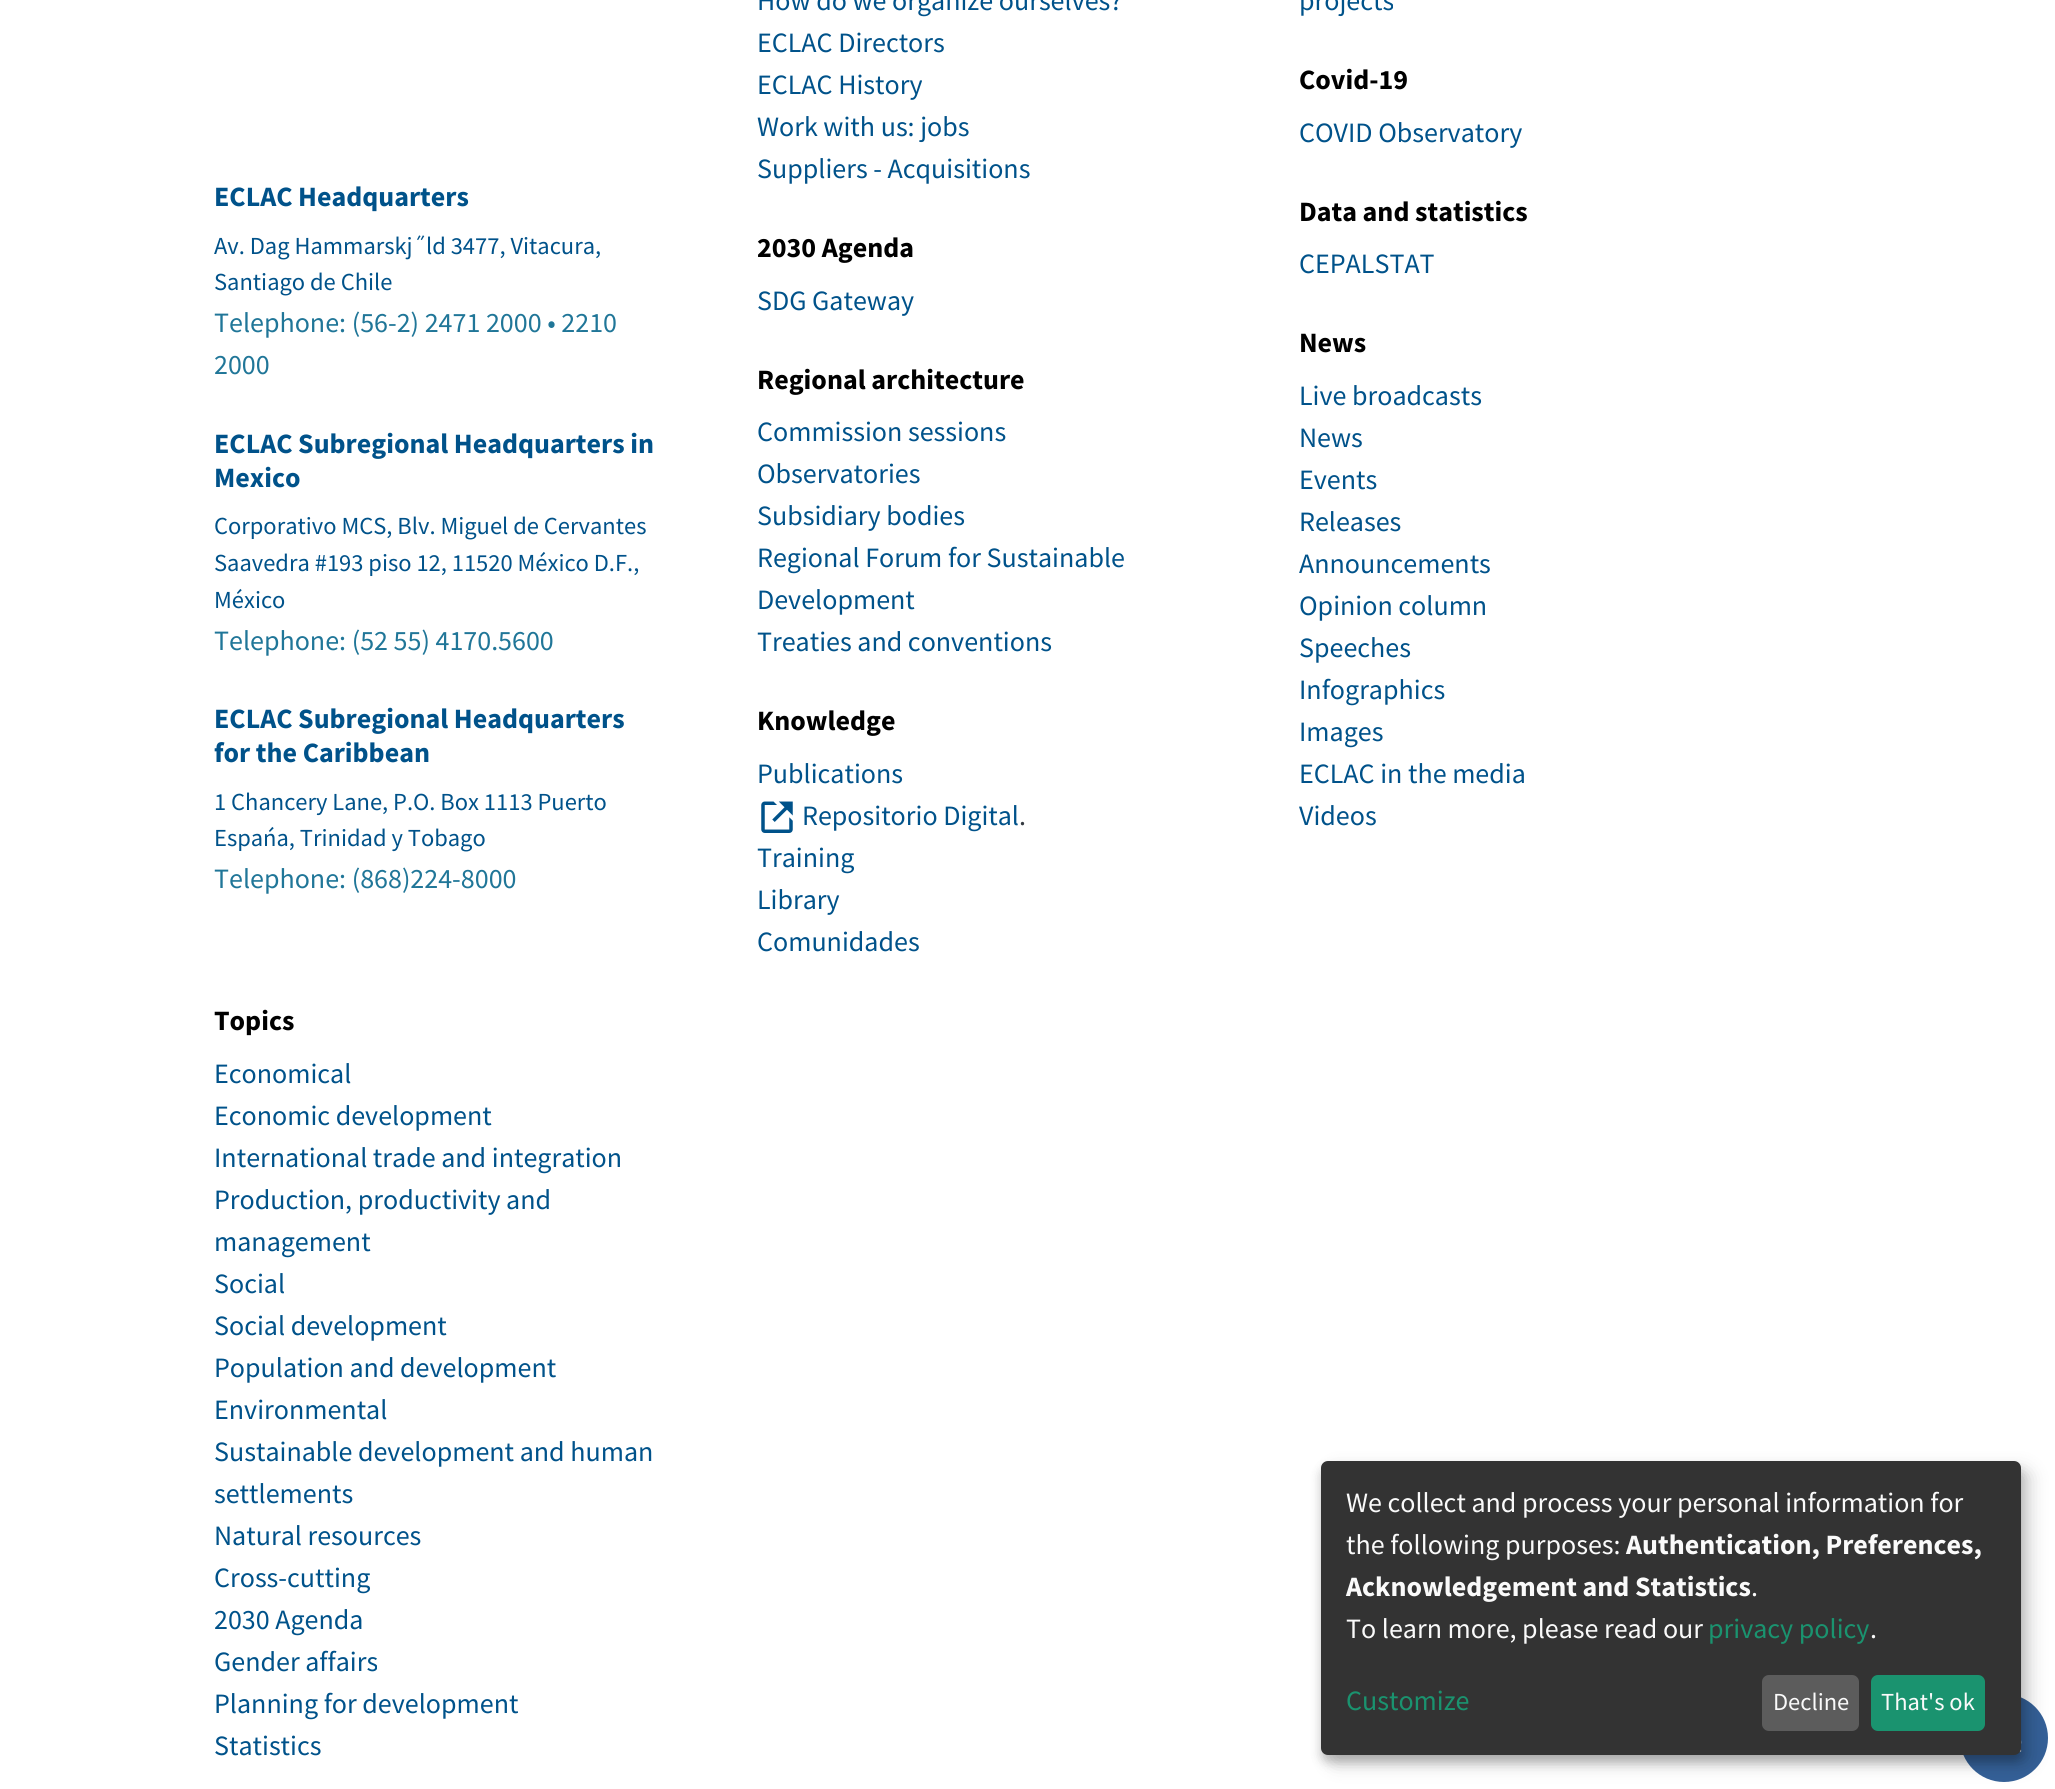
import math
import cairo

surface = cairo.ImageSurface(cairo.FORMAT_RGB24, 2055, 1789)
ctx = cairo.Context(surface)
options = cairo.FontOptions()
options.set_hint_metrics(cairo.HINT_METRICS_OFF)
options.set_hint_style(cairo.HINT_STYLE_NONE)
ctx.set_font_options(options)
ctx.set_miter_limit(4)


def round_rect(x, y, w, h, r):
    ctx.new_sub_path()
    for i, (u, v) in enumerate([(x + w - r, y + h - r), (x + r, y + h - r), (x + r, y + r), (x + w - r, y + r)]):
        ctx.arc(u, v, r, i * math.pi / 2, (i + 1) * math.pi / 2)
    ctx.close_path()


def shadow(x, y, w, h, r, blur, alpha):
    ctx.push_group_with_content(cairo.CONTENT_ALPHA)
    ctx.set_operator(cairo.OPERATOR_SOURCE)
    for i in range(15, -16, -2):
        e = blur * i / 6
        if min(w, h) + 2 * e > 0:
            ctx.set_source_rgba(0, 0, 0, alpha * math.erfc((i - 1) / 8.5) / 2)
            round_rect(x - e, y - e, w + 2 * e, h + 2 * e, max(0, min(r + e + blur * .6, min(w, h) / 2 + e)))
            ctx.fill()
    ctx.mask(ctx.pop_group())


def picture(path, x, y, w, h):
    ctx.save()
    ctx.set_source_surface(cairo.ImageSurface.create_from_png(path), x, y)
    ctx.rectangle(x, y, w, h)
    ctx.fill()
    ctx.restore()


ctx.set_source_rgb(1, 1, 1)
ctx.paint()
ctx.select_font_face("Source Sans Pro", cairo.FONT_SLANT_NORMAL, cairo.FONT_WEIGHT_BOLD)
ctx.set_font_size(28)
ctx.set_source_rgb(0, 0.322, 0.541)
ctx.move_to(214, 206)
ctx.show_text("ECLAC Headquarters")
ctx.select_font_face("Source Sans Pro")
ctx.set_font_size(24.5)
ctx.move_to(214, 254)
ctx.show_text("Av. Dag Hammarskj˝ld 3477, Vitacura,")
ctx.move_to(214, 290)
ctx.show_text("Santiago de Chile")
ctx.set_font_size(28)
ctx.set_source_rgb(0.125, 0.463, 0.596)
ctx.move_to(214, 332)
ctx.show_text("Telephone: (56-2) 2471 2000 • 2210")
ctx.move_to(214, 374)
ctx.show_text("2000")
ctx.select_font_face("Source Sans Pro", cairo.FONT_SLANT_NORMAL, cairo.FONT_WEIGHT_BOLD)
ctx.set_source_rgb(0, 0.322, 0.541)
ctx.move_to(214, 453)
ctx.show_text("ECLAC Subregional Headquarters in")
ctx.move_to(214, 487)
ctx.show_text("Mexico")
ctx.select_font_face("Source Sans Pro")
ctx.set_font_size(24.5)
ctx.move_to(214, 534)
ctx.show_text("Corporativo MCS, Blv. Miguel de Cervantes")
ctx.move_to(214, 571)
ctx.show_text("Saavedra #193 piso 12, 11520 México D.F.,")
ctx.move_to(214, 608)
ctx.show_text("México")
ctx.set_font_size(28)
ctx.set_source_rgb(0.125, 0.463, 0.596)
ctx.move_to(214, 650)
ctx.show_text("Telephone: (52 55) 4170.5600")
ctx.select_font_face("Source Sans Pro", cairo.FONT_SLANT_NORMAL, cairo.FONT_WEIGHT_BOLD)
ctx.set_source_rgb(0, 0.322, 0.541)
ctx.move_to(214, 728)
ctx.show_text("ECLAC Subregional Headquarters")
ctx.move_to(214, 762)
ctx.show_text("for the Caribbean")
ctx.select_font_face("Source Sans Pro")
ctx.set_font_size(24.5)
ctx.move_to(214, 810)
ctx.show_text("1 Chancery Lane, P.O. Box 1113 Puerto")
ctx.move_to(214, 846)
ctx.show_text("Espańa, Trinidad y Tobago")
ctx.set_font_size(28)
ctx.set_source_rgb(0.125, 0.463, 0.596)
ctx.move_to(214, 888)
ctx.show_text("Telephone: (868)224-8000")
ctx.set_source_rgb(0, 0.322, 0.541)
ctx.move_to(757, 10)
ctx.show_text("How do we organize ourselves?")
ctx.move_to(757, 52)
ctx.show_text("ECLAC Directors")
ctx.move_to(757, 94)
ctx.show_text("ECLAC History")
ctx.move_to(757, 136)
ctx.show_text("Work with us: jobs")
ctx.move_to(757, 178)
ctx.show_text("Suppliers - Acquisitions")
ctx.select_font_face("Source Sans Pro", cairo.FONT_SLANT_NORMAL, cairo.FONT_WEIGHT_BOLD)
ctx.set_source_rgb(0, 0, 0)
ctx.move_to(757, 257)
ctx.show_text("2030 Agenda")
ctx.select_font_face("Source Sans Pro")
ctx.set_source_rgb(0, 0.322, 0.541)
ctx.move_to(757, 310)
ctx.show_text("SDG Gateway")
ctx.select_font_face("Source Sans Pro", cairo.FONT_SLANT_NORMAL, cairo.FONT_WEIGHT_BOLD)
ctx.set_source_rgb(0, 0, 0)
ctx.move_to(757, 389)
ctx.show_text("Regional architecture")
ctx.select_font_face("Source Sans Pro")
ctx.set_source_rgb(0, 0.322, 0.541)
ctx.move_to(757, 441)
ctx.show_text("Commission sessions")
ctx.move_to(757, 483)
ctx.show_text("Observatories")
ctx.move_to(757, 525)
ctx.show_text("Subsidiary bodies")
ctx.move_to(757, 567)
ctx.show_text("Regional Forum for Sustainable")
ctx.move_to(757, 609)
ctx.show_text("Development")
ctx.move_to(757, 651)
ctx.show_text("Treaties and conventions")
ctx.select_font_face("Source Sans Pro", cairo.FONT_SLANT_NORMAL, cairo.FONT_WEIGHT_BOLD)
ctx.set_source_rgb(0, 0, 0)
ctx.move_to(757, 730)
ctx.show_text("Knowledge")
ctx.select_font_face("Source Sans Pro")
ctx.set_source_rgb(0, 0.322, 0.541)
ctx.move_to(757, 783)
ctx.show_text("Publications")
picture("img1.png", 761, 801, 32, 32)
ctx.move_to(802, 825)
ctx.show_text("Repositorio Digital")
ctx.set_source_rgb(0.204, 0.227, 0.251)
ctx.move_to(1019, 825)
ctx.show_text(".")
ctx.set_source_rgb(0, 0.322, 0.541)
ctx.move_to(757, 867)
ctx.show_text("Training")
ctx.move_to(757, 909)
ctx.show_text("Library")
ctx.move_to(757, 951)
ctx.show_text("Comunidades")
ctx.move_to(1299, 10)
ctx.show_text("projects")
ctx.select_font_face("Source Sans Pro", cairo.FONT_SLANT_NORMAL, cairo.FONT_WEIGHT_BOLD)
ctx.set_source_rgb(0, 0, 0)
ctx.move_to(1299, 89)
ctx.show_text("Covid-19")
ctx.select_font_face("Source Sans Pro")
ctx.set_source_rgb(0, 0.322, 0.541)
ctx.move_to(1299, 142)
ctx.show_text("COVID Observatory")
ctx.select_font_face("Source Sans Pro", cairo.FONT_SLANT_NORMAL, cairo.FONT_WEIGHT_BOLD)
ctx.set_source_rgb(0, 0, 0)
ctx.move_to(1299, 221)
ctx.show_text("Data and statistics")
ctx.select_font_face("Source Sans Pro")
ctx.set_source_rgb(0, 0.322, 0.541)
ctx.move_to(1299, 273)
ctx.show_text("CEPALSTAT")
ctx.select_font_face("Source Sans Pro", cairo.FONT_SLANT_NORMAL, cairo.FONT_WEIGHT_BOLD)
ctx.set_source_rgb(0, 0, 0)
ctx.move_to(1299, 352)
ctx.show_text("News")
ctx.select_font_face("Source Sans Pro")
ctx.set_source_rgb(0, 0.322, 0.541)
ctx.move_to(1299, 405)
ctx.show_text("Live broadcasts")
ctx.move_to(1299, 447)
ctx.show_text("News")
ctx.move_to(1299, 489)
ctx.show_text("Events")
ctx.move_to(1299, 531)
ctx.show_text("Releases")
ctx.move_to(1299, 573)
ctx.show_text("Announcements")
ctx.move_to(1299, 615)
ctx.show_text("Opinion column")
ctx.move_to(1299, 657)
ctx.show_text("Speeches")
ctx.move_to(1299, 699)
ctx.show_text("Infographics")
ctx.move_to(1299, 741)
ctx.show_text("Images")
ctx.move_to(1299, 783)
ctx.show_text("ECLAC in the media")
ctx.move_to(1299, 825)
ctx.show_text("Videos")
ctx.select_font_face("Source Sans Pro", cairo.FONT_SLANT_NORMAL, cairo.FONT_WEIGHT_BOLD)
ctx.set_source_rgb(0, 0, 0)
ctx.move_to(214, 1030)
ctx.show_text("Topics")
ctx.select_font_face("Source Sans Pro")
ctx.set_source_rgb(0, 0.322, 0.541)
ctx.move_to(214, 1083)
ctx.show_text("Economical")
ctx.move_to(214, 1125)
ctx.show_text("Economic development")
ctx.move_to(214, 1167)
ctx.show_text("International trade and integration")
ctx.move_to(214, 1209)
ctx.show_text("Production, productivity and")
ctx.move_to(214, 1251)
ctx.show_text("management")
ctx.move_to(214, 1293)
ctx.show_text("Social")
ctx.move_to(214, 1335)
ctx.show_text("Social development")
ctx.move_to(214, 1377)
ctx.show_text("Population and development")
ctx.move_to(214, 1419)
ctx.show_text("Environmental")
ctx.move_to(214, 1461)
ctx.show_text("Sustainable development and human")
ctx.move_to(214, 1503)
ctx.show_text("settlements")
ctx.move_to(214, 1545)
ctx.show_text("Natural resources")
ctx.move_to(214, 1587)
ctx.show_text("Cross-cutting")
ctx.move_to(214, 1629)
ctx.show_text("2030 Agenda")
ctx.move_to(214, 1671)
ctx.show_text("Gender affairs")
ctx.move_to(214, 1713)
ctx.show_text("Planning for development")
ctx.move_to(214, 1755)
ctx.show_text("Statistics")
ctx.set_source_rgb(0.204, 0.376, 0.592)
ctx.new_path()
ctx.arc(2004, 1738, 44, 0, 2 * math.pi)
ctx.fill()
picture("img2.png", 2019, 1740, 3, 12)
ctx.set_source_rgb(0, 0, 0)
shadow(1330, 1470, 700, 294, 7, 9, 0.19)
shadow(1321, 1468, 700, 294, 7, 5, 0.2)
ctx.set_source_rgb(0.2, 0.2, 0.2)
round_rect(1321, 1461, 700, 294, 7)
ctx.fill()
ctx.set_source_rgb(0.98, 0.98, 0.98)
ctx.move_to(1346, 1512)
ctx.show_text("We collect and process your personal information for")
ctx.move_to(1346, 1554)
ctx.show_text("the following purposes:")
ctx.select_font_face("Source Sans Pro", cairo.FONT_SLANT_NORMAL, cairo.FONT_WEIGHT_BOLD)
ctx.move_to(1626, 1554)
ctx.show_text("Authentication, Preferences,")
ctx.move_to(1346, 1596)
ctx.show_text("Acknowledgement and Statistics")
ctx.select_font_face("Source Sans Pro")
ctx.move_to(1751, 1596)
ctx.show_text(".")
ctx.move_to(1346, 1638)
ctx.show_text("To learn more, please read our")
ctx.set_source_rgb(0.102, 0.576, 0.435)
ctx.move_to(1708, 1638)
ctx.show_text("privacy policy")
ctx.set_source_rgb(0.98, 0.98, 0.98)
ctx.move_to(1870, 1638)
ctx.show_text(".")
ctx.set_source_rgb(0.102, 0.576, 0.435)
ctx.move_to(1346, 1710)
ctx.show_text("Customize")
ctx.set_source_rgb(0.361, 0.361, 0.361)
round_rect(1762, 1675, 97, 56, 7)
ctx.fill()
ctx.set_font_size(24.5)
ctx.set_source_rgb(0.98, 0.98, 0.98)
ctx.move_to(1773, 1710)
ctx.show_text("Decline")
ctx.set_source_rgb(0.102, 0.576, 0.435)
round_rect(1871, 1675, 114, 56, 7)
ctx.fill()
ctx.set_source_rgb(0.98, 0.98, 0.98)
ctx.move_to(1881, 1710)
ctx.show_text("That's ok")
surface.write_to_png("page.png")
